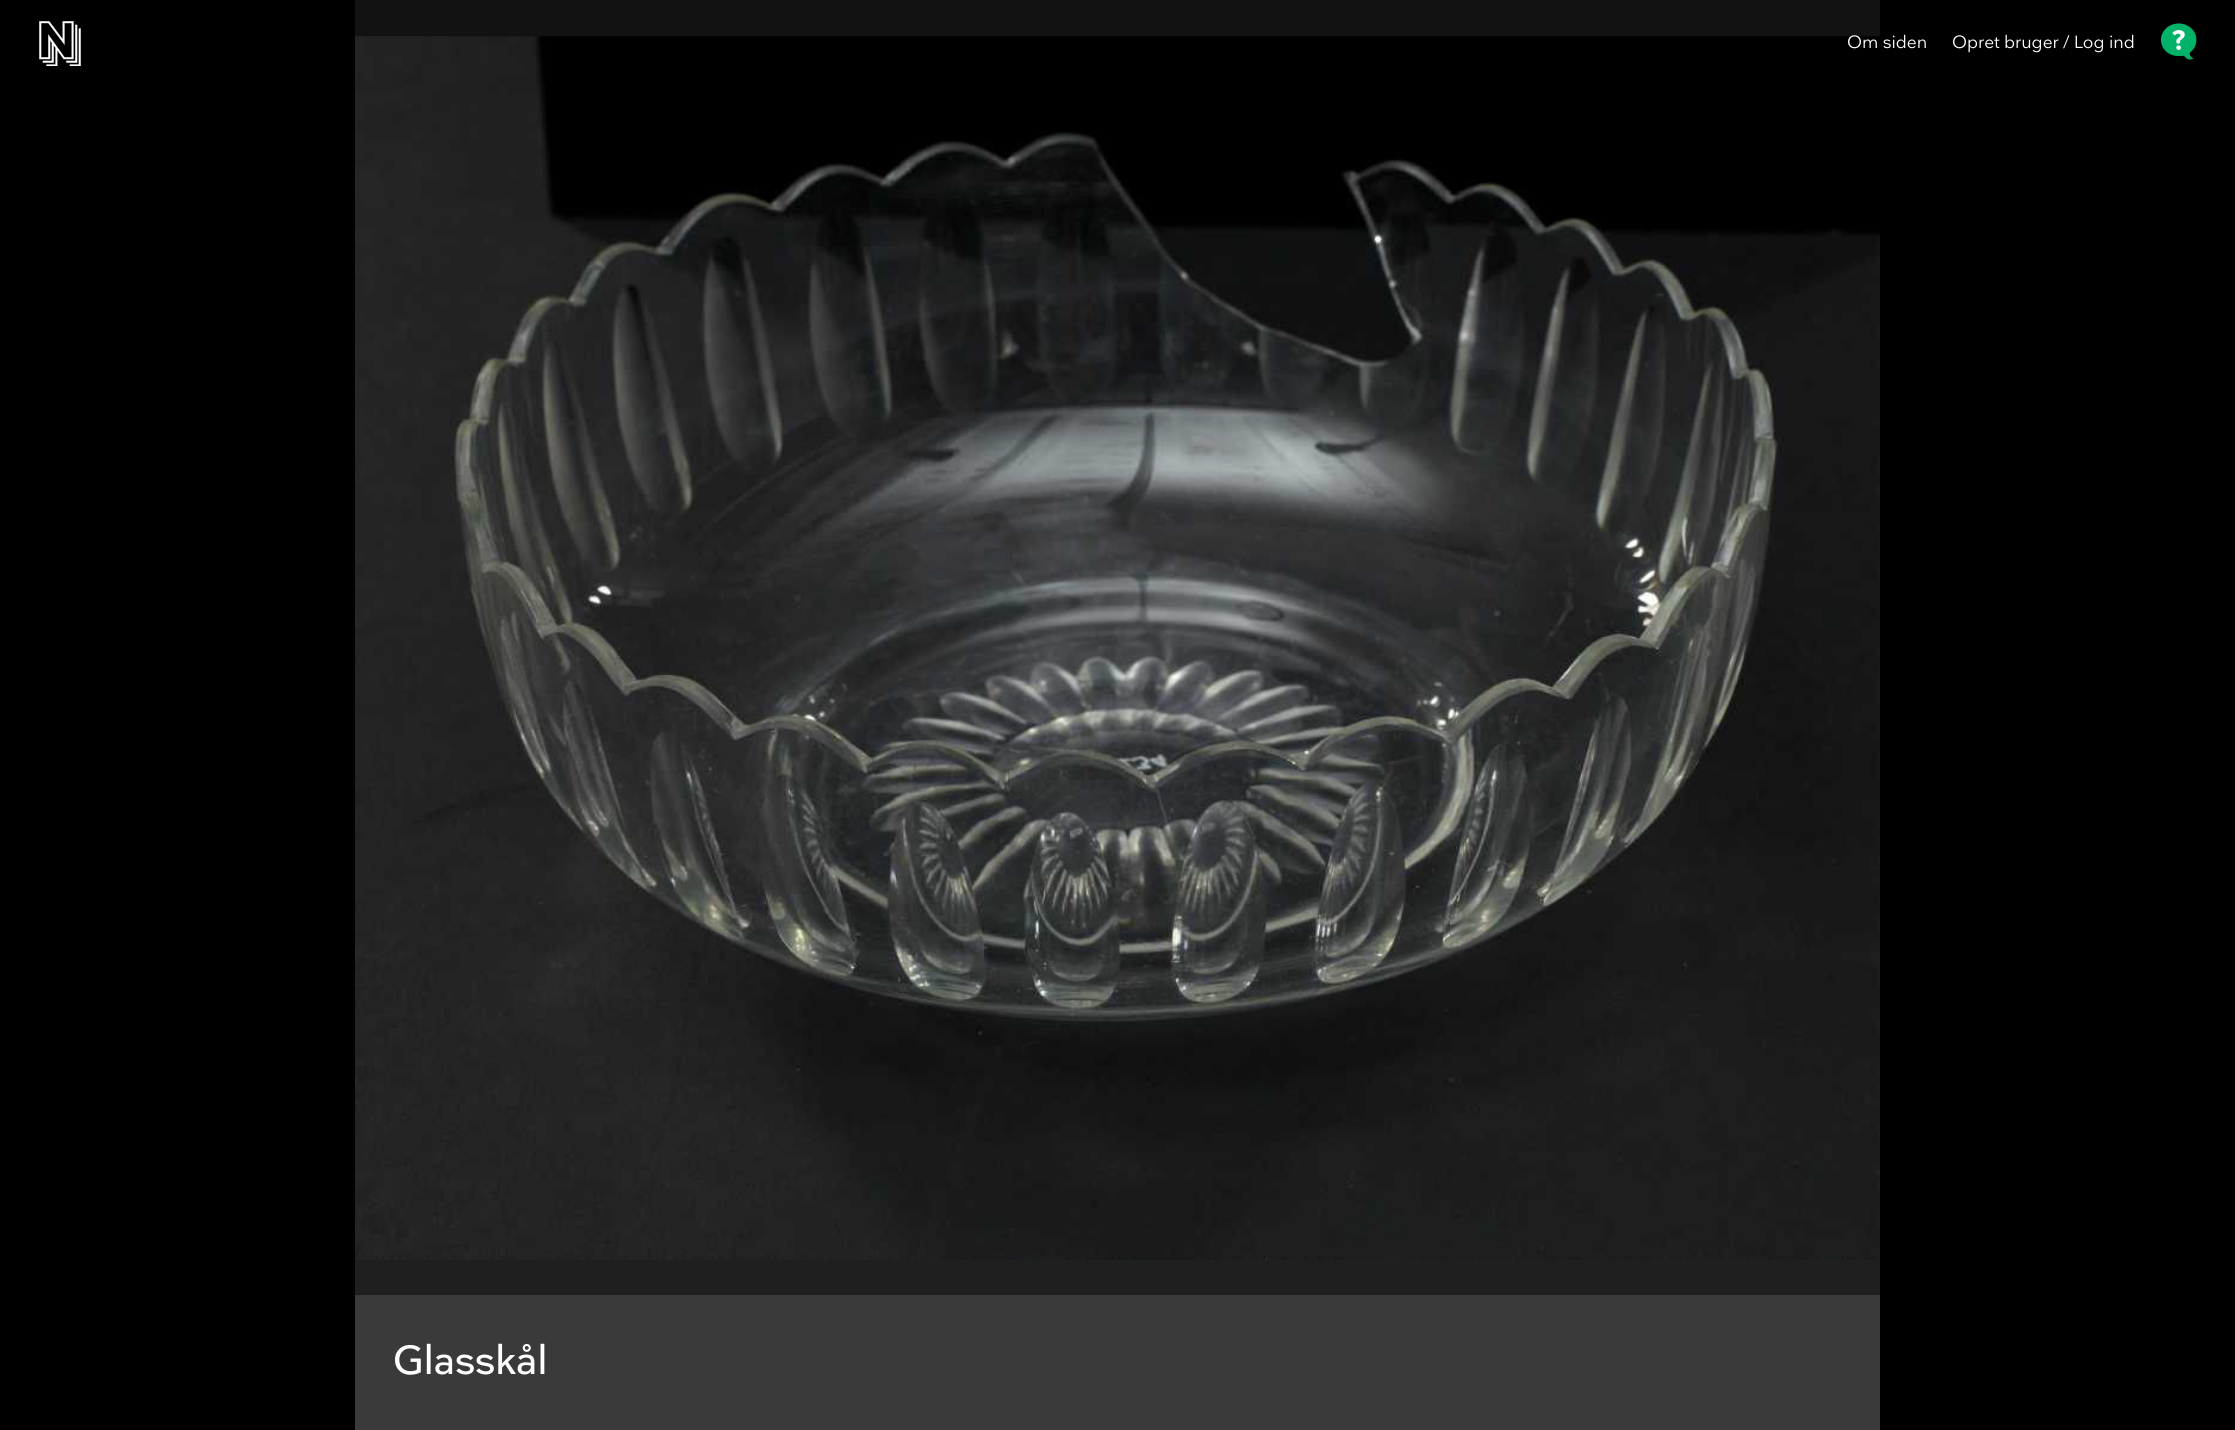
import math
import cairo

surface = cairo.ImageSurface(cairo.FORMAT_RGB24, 2235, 1430)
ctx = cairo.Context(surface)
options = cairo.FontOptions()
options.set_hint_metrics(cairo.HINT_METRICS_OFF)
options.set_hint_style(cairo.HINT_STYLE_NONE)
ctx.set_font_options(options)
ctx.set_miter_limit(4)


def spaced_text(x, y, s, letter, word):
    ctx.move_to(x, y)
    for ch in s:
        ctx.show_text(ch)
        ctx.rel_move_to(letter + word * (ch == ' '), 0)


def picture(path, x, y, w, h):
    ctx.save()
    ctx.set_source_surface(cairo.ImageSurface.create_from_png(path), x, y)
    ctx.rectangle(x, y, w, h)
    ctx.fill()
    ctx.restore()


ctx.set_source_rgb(0, 0, 0)
ctx.paint()
picture("img1.png", 39, 21, 42, 45)
gradient = cairo.LinearGradient(1117, 0, 1118, 1295)
gradient.add_color_stop_rgba(0, 0.071, 0.071, 0.071, 1)
gradient.add_color_stop_rgba(1, 0.122, 0.122, 0.122, 1)
ctx.set_source(gradient)
ctx.rectangle(355, 0, 1525, 1295)
ctx.fill()
picture("img3.png", 355, 36, 1525, 1224)
ctx.select_font_face("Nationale")
ctx.set_font_size(17.5)
ctx.set_source_rgb(1, 1, 1)
ctx.move_to(1847, 48)
ctx.show_text("Om siden")
ctx.move_to(1952, 48)
ctx.show_text("Opret bruger / Log ind")
picture("img2.png", 2161, 23, 36, 37)
ctx.set_source_rgb(0.227, 0.227, 0.227)
ctx.rectangle(355, 1295, 1525, 135)
ctx.fill()
ctx.select_font_face("Nationale Medium")
ctx.set_font_size(40)
ctx.set_source_rgb(1, 1, 1)
spaced_text(393, 1374, "Glasskål", -0.5, 0)
surface.write_to_png("page.png")
